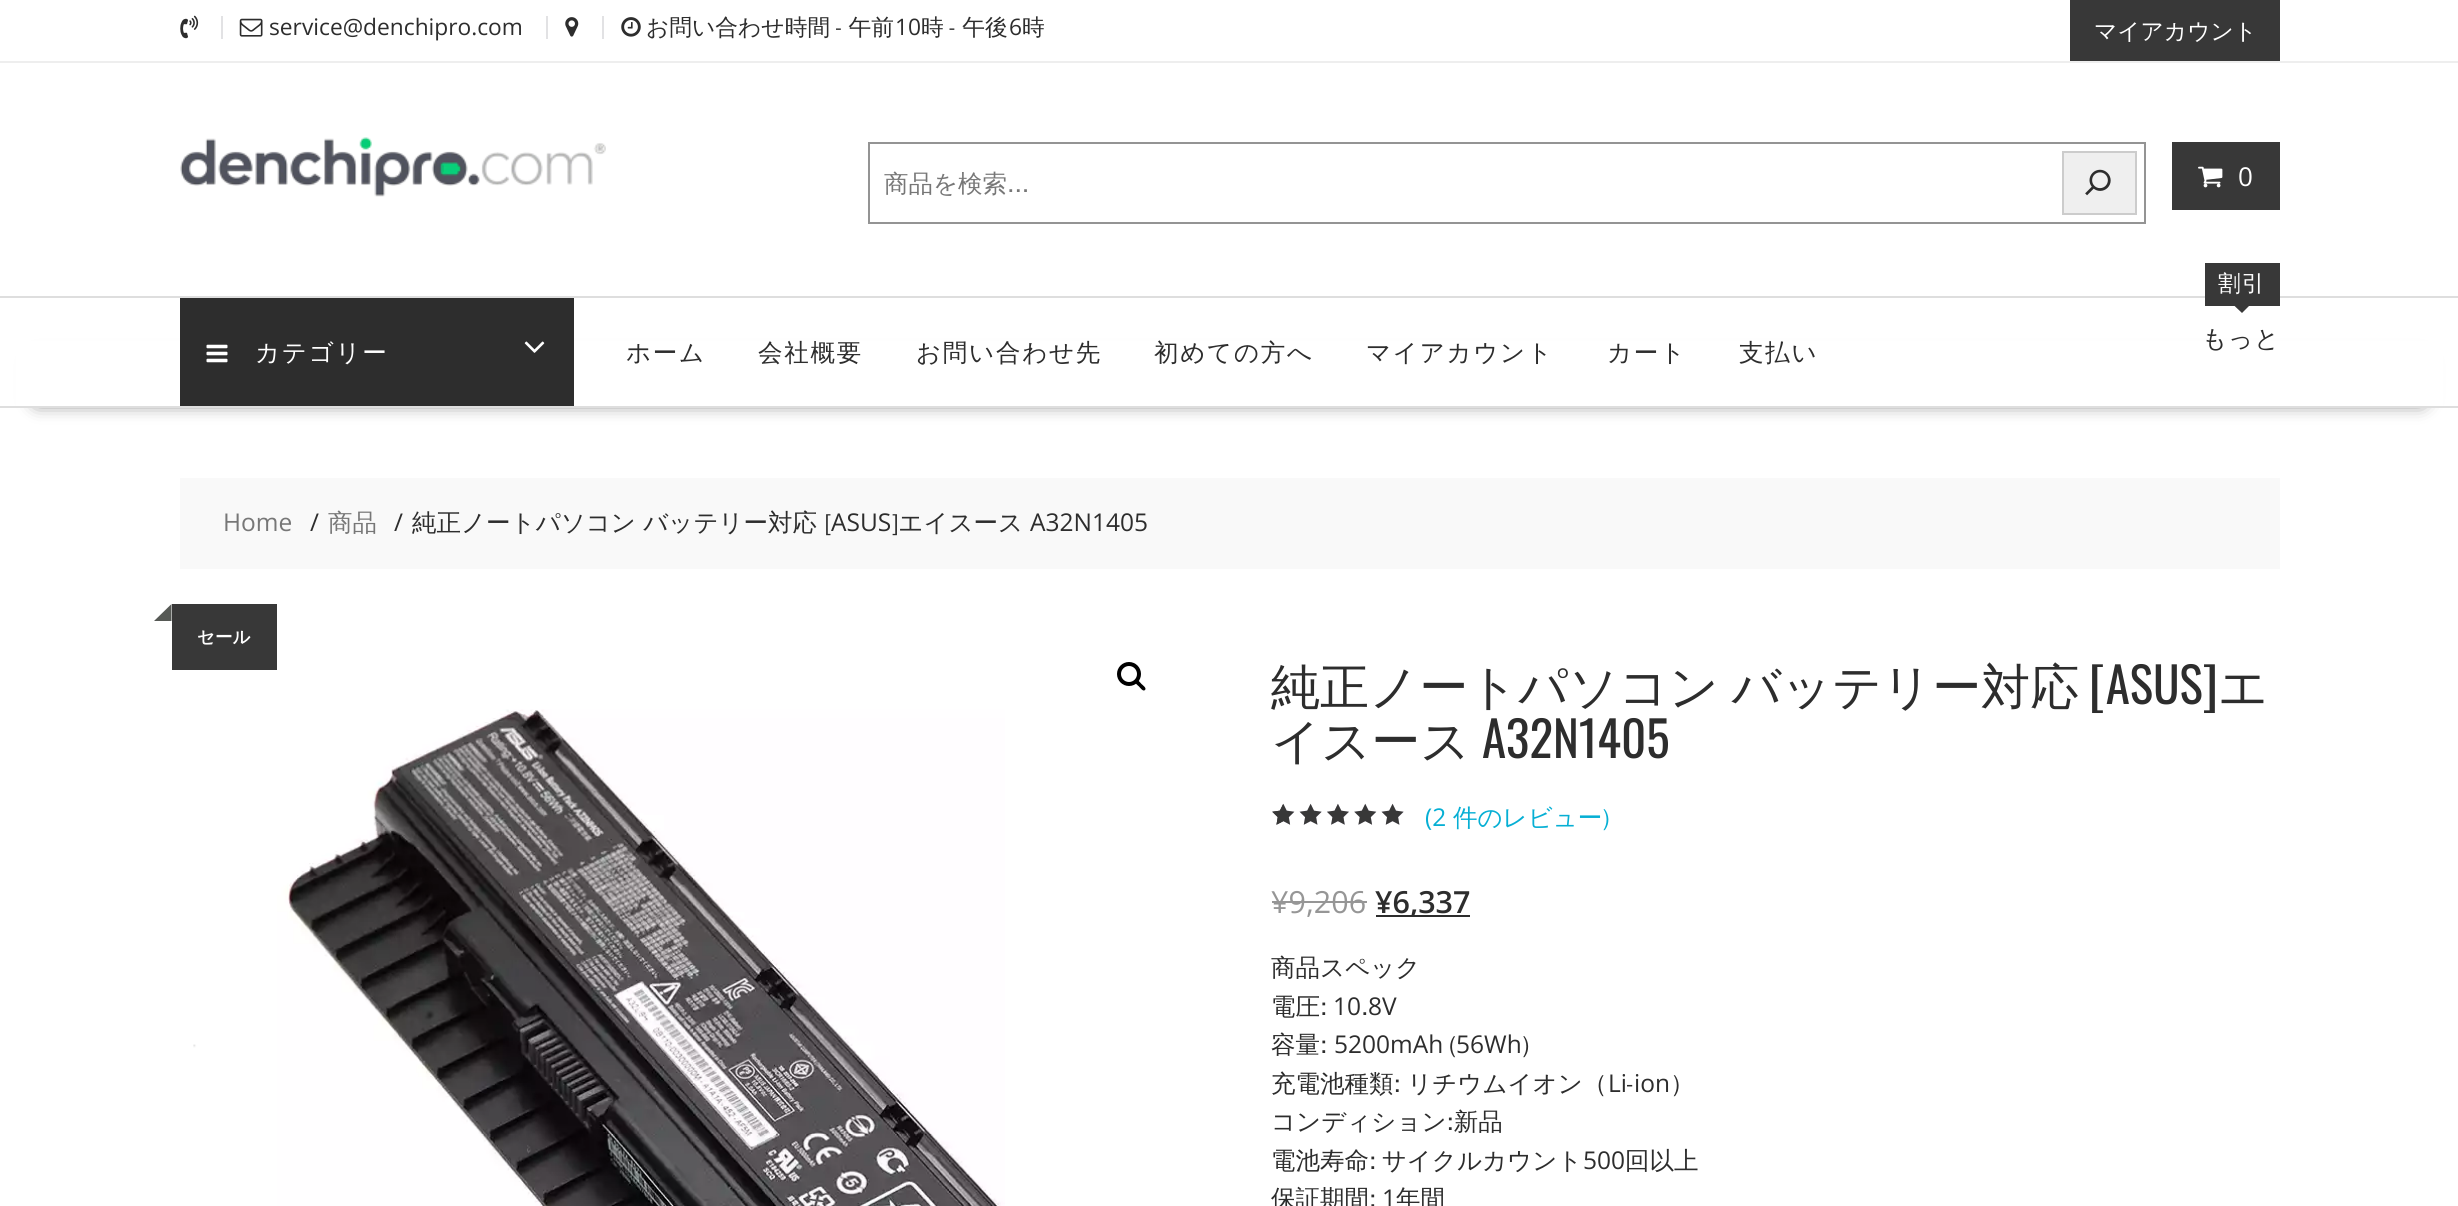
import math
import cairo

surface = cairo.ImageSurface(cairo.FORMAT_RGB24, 2458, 1206)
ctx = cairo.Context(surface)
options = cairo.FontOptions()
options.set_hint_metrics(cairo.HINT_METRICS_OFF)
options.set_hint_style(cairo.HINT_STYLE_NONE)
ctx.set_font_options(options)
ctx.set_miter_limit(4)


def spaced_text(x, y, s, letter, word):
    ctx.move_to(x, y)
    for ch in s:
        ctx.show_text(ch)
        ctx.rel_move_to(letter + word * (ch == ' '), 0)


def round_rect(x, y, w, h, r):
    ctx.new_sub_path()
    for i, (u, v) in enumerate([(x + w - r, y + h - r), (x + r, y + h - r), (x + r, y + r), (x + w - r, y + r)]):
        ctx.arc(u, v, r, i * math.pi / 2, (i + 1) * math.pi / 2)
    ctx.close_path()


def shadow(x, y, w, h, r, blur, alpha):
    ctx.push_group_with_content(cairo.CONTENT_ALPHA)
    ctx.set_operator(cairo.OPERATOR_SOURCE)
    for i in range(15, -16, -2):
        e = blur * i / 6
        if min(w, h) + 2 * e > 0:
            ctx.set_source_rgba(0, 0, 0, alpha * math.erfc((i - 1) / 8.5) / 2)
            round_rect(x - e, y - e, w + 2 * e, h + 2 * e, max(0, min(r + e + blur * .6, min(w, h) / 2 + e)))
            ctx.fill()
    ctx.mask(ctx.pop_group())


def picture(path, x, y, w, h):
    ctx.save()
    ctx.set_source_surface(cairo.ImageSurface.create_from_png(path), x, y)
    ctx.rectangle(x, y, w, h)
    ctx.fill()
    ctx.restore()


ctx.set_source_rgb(1, 1, 1)
ctx.paint()
ctx.set_source_rgb(0.933, 0.933, 0.933)
ctx.rectangle(0, 61, 2458, 2)
ctx.fill()
picture("img1.png", 180, 15, 19, 24)
ctx.set_source_rgb(0.886, 0.886, 0.894)
ctx.rectangle(221, 16, 2, 23)
ctx.fill()
picture("img2.png", 239, 18, 24, 19)
ctx.select_font_face("Open Sans")
ctx.set_font_size(22.75)
ctx.set_source_rgb(0.176, 0.176, 0.176)
ctx.move_to(269, 35)
ctx.show_text("service@denchipro.com")
ctx.set_source_rgb(0.886, 0.886, 0.894)
ctx.rectangle(546, 16, 2, 23)
ctx.fill()
picture("img3.png", 565, 17, 14, 20)
ctx.rectangle(602, 16, 2, 23)
ctx.fill()
picture("img4.png", 621, 17, 20, 20)
ctx.select_font_face("WenQuanYi Zen Hei Medium")
ctx.set_source_rgb(0.176, 0.176, 0.176)
spaced_text(646, 35, "お問い合わせ時間 - 午前", 0, -1)
ctx.select_font_face("Open Sans")
ctx.move_to(895, 35)
ctx.show_text("10")
ctx.select_font_face("WenQuanYi Zen Hei Medium")
spaced_text(921, 35, "時 - 午後", 0, -1)
ctx.select_font_face("Open Sans")
ctx.move_to(1009, 35)
ctx.show_text("6")
ctx.select_font_face("WenQuanYi Zen Hei Medium")
ctx.move_to(1022, 35)
ctx.show_text("時")
ctx.set_source_rgb(0.22, 0.22, 0.22)
ctx.rectangle(2070, 0, 210, 61)
ctx.fill()
ctx.set_source_rgb(1, 1, 1)
ctx.move_to(2094, 39)
ctx.show_text("マイアカウント")
picture("img5.png", 180, 137, 426, 60)
ctx.rectangle(869, 143, 1276, 80)
ctx.set_source_rgb(0.58, 0.58, 0.58)
ctx.stroke()
ctx.set_font_size(24.5)
ctx.set_source_rgb(0.467, 0.467, 0.467)
ctx.move_to(884, 192)
ctx.show_text("商品を検索...")
ctx.set_source_rgb(0.937, 0.937, 0.937)
ctx.rectangle(2063, 152, 73, 62)
ctx.fill_preserve()
ctx.set_source_rgb(0.8, 0.8, 0.8)
ctx.stroke()
picture("img6.png", 2085, 169, 26, 27)
ctx.set_source_rgb(0.22, 0.22, 0.22)
ctx.rectangle(2172, 142, 108, 68)
ctx.fill()
picture("img7.png", 2198, 166, 25, 22)
ctx.select_font_face("Open Sans")
ctx.set_font_size(26)
ctx.set_source_rgb(1, 1, 1)
ctx.move_to(2238, 186)
ctx.show_text("0")
ctx.set_source_rgb(0, 0, 0)
shadow(37, 362, 2385, 39, 0, 9.5, 0.75)
ctx.set_source_rgb(1, 1, 1)
ctx.rectangle(16, 341, 2427, 65)
ctx.fill()
ctx.set_source_rgb(0.871, 0.871, 0.871)
ctx.rectangle(0, 296, 2458, 2)
ctx.fill()
ctx.rectangle(0, 406, 2458, 2)
ctx.fill()
ctx.set_source_rgb(0.176, 0.176, 0.176)
ctx.rectangle(180, 298, 394, 108)
ctx.fill()
picture("img8.png", 206, 344, 22, 19)
ctx.select_font_face("WenQuanYi Zen Hei Medium")
ctx.set_font_size(24.5)
ctx.set_source_rgb(1, 1, 1)
spaced_text(255, 361, "カテゴリー", 1.75, 0)
picture("img9.png", 524, 341, 21, 12)
ctx.set_source_rgb(0.176, 0.176, 0.176)
spaced_text(626, 361, "ホーム", 1.75, 0)
spaced_text(758, 361, "会社概要", 1.75, 0)
spaced_text(916, 361, "お問い合わせ先", 1.75, 0)
spaced_text(1154, 361, "初めての方へ", 1.75, 0)
spaced_text(1366, 361, "マイアカウント", 1.75, 0)
spaced_text(1607, 361, "カート", 1.75, 0)
spaced_text(1739, 361, "支払い", 1.75, 0)
ctx.set_source_rgb(0.22, 0.22, 0.22)
ctx.rectangle(2205, 263, 75, 43)
ctx.fill()
ctx.set_font_size(22.75)
ctx.set_source_rgb(1, 1, 1)
spaced_text(2218, 291, "割引", 1, 0)
ctx.set_source_rgb(0.22, 0.22, 0.22)
ctx.new_path()
ctx.move_to(2233, 304.5)
ctx.line_to(2250.5, 304.5)
ctx.line_to(2242, 313)
ctx.close_path()
ctx.fill()
ctx.set_font_size(24.5)
ctx.set_source_rgb(0.176, 0.176, 0.176)
spaced_text(2202, 347, "もっと", 1, 0)
ctx.set_source_rgb(0.973, 0.973, 0.973)
ctx.rectangle(180, 478, 2100, 91)
ctx.fill()
ctx.select_font_face("Open Sans")
ctx.set_source_rgb(0.467, 0.467, 0.467)
ctx.move_to(223, 531)
ctx.show_text("Home")
ctx.set_source_rgb(0.176, 0.176, 0.176)
ctx.move_to(310, 531)
ctx.show_text("/")
ctx.select_font_face("WenQuanYi Zen Hei Medium")
ctx.set_source_rgb(0.467, 0.467, 0.467)
ctx.move_to(328, 531)
ctx.show_text("商品")
ctx.select_font_face("Open Sans")
ctx.set_source_rgb(0.176, 0.176, 0.176)
ctx.move_to(394, 531)
ctx.show_text("/")
ctx.select_font_face("WenQuanYi Zen Hei Medium")
ctx.move_to(412, 531)
ctx.show_text("純正ノートパソコン バッテリー対応 [")
ctx.select_font_face("Open Sans")
ctx.move_to(831, 531)
ctx.show_text("ASUS")
ctx.select_font_face("WenQuanYi Zen Hei Medium")
ctx.move_to(891, 531)
ctx.show_text("]エイスース")
ctx.select_font_face("Open Sans")
ctx.move_to(1030, 531)
ctx.show_text("A32N1405")
ctx.set_source_rgb(0.22, 0.22, 0.22)
ctx.rectangle(172, 604, 105, 66)
ctx.fill()
ctx.set_source_rgb(0.337, 0.349, 0.333)
ctx.new_path()
ctx.move_to(171.5, 604)
ctx.line_to(171.5, 621)
ctx.line_to(154, 621)
ctx.close_path()
ctx.fill()
ctx.select_font_face("WenQuanYi Zen Hei", cairo.FONT_SLANT_NORMAL, cairo.FONT_WEIGHT_BOLD)
ctx.set_font_size(17.5)
ctx.set_source_rgb(1, 1, 1)
ctx.move_to(197, 643)
ctx.show_text("セール")
ctx.new_path()
ctx.arc(1129, 674, 10, 0, 2 * math.pi)
ctx.set_source_rgb(0, 0, 0)
ctx.set_line_width(4)
ctx.stroke()
ctx.new_path()
ctx.move_to(1135, 680)
ctx.curve_to(1137, 678, 1140.5, 683, 1141.5, 684)
ctx.curve_to(1142.5, 685, 1147, 688, 1145, 690)
ctx.curve_to(1143, 692, 1140, 687.5, 1139, 686.5)
ctx.curve_to(1138, 685.5, 1133, 682, 1135, 680)
ctx.close_path()
ctx.fill()
picture("img10.png", 193, 709, 812, 497)
ctx.select_font_face("WenQuanYi Zen Hei Medium")
ctx.set_font_size(49)
ctx.set_source_rgb(0.176, 0.176, 0.176)
spaced_text(1271, 704, "純正ノートパソコン バッテリー対応", 0, -2)
ctx.select_font_face("Oswald")
ctx.move_to(2089, 704)
ctx.show_text("[ASUS]")
ctx.select_font_face("WenQuanYi Zen Hei Medium")
ctx.move_to(2218, 704)
ctx.show_text("エ")
ctx.move_to(1271, 758)
ctx.show_text("イスース")
ctx.select_font_face("Oswald")
ctx.move_to(1482, 758)
ctx.show_text("A32N1405")
picture("img13.png", 1272, 804, 132, 21)
picture("img11.png", 1272, 803, 132, 22)
picture("img12.png", 1272, 804, 11, 21)
ctx.select_font_face("Open Sans")
ctx.set_font_size(24.5)
ctx.set_source_rgb(0.027, 0.686, 0.831)
ctx.move_to(1425, 826)
ctx.show_text("(2")
ctx.select_font_face("WenQuanYi Zen Hei Medium")
ctx.move_to(1453, 826)
ctx.show_text("件のレビュー)")
ctx.select_font_face("Open Sans")
ctx.set_font_size(30.5)
ctx.set_source_rgb(0.588, 0.588, 0.588)
ctx.move_to(1271, 913)
ctx.show_text("¥9,206")
ctx.rectangle(1272, 901, 95, 2)
ctx.fill()
ctx.set_source_rgb(0.176, 0.176, 0.176)
ctx.rectangle(1376, 915, 94, 2)
ctx.fill()
ctx.select_font_face("Open Sans SemiBold")
ctx.move_to(1375, 913)
ctx.show_text("¥6,337")
ctx.select_font_face("WenQuanYi Zen Hei Medium")
ctx.set_font_size(24.5)
ctx.move_to(1271, 976)
ctx.show_text("商品スペック")
ctx.move_to(1271, 1015)
ctx.show_text("電圧:")
ctx.select_font_face("Open Sans")
ctx.move_to(1333, 1015)
ctx.show_text("10")
ctx.select_font_face("WenQuanYi Zen Hei Medium")
ctx.move_to(1361, 1015)
ctx.show_text(".")
ctx.select_font_face("Open Sans")
ctx.move_to(1368, 1015)
ctx.show_text("8V")
ctx.select_font_face("WenQuanYi Zen Hei Medium")
ctx.move_to(1271, 1053)
ctx.show_text("容量:")
ctx.select_font_face("Open Sans")
ctx.move_to(1334, 1053)
ctx.show_text("5200mAh")
ctx.select_font_face("WenQuanYi Zen Hei Medium")
ctx.move_to(1449, 1053)
ctx.show_text("(")
ctx.select_font_face("Open Sans")
ctx.move_to(1456, 1053)
ctx.show_text("56Wh")
ctx.select_font_face("WenQuanYi Zen Hei Medium")
ctx.move_to(1522, 1053)
ctx.show_text(")")
spaced_text(1271, 1092, "充電池種類: リチウムイオン（", 0, -1)
ctx.select_font_face("Open Sans")
ctx.move_to(1608, 1092)
ctx.show_text("Li")
ctx.select_font_face("WenQuanYi Zen Hei Medium")
ctx.move_to(1627, 1092)
ctx.show_text("-")
ctx.select_font_face("Open Sans")
ctx.move_to(1634, 1092)
ctx.show_text("ion")
ctx.select_font_face("WenQuanYi Zen Hei Medium")
ctx.move_to(1670, 1092)
ctx.show_text("）")
ctx.move_to(1271, 1130)
ctx.show_text("コンディション:新品")
spaced_text(1271, 1169, "電池寿命: サイクルカウント", 0, -2)
ctx.select_font_face("Open Sans")
ctx.move_to(1583, 1169)
ctx.show_text("500")
ctx.select_font_face("WenQuanYi Zen Hei Medium")
ctx.move_to(1625, 1169)
ctx.show_text("回以上")
ctx.move_to(1271, 1207)
ctx.show_text("保証期間:")
ctx.select_font_face("Open Sans")
ctx.move_to(1382, 1207)
ctx.show_text("1")
ctx.select_font_face("WenQuanYi Zen Hei Medium")
ctx.move_to(1396, 1207)
ctx.show_text("年間")
surface.write_to_png("page.png")
